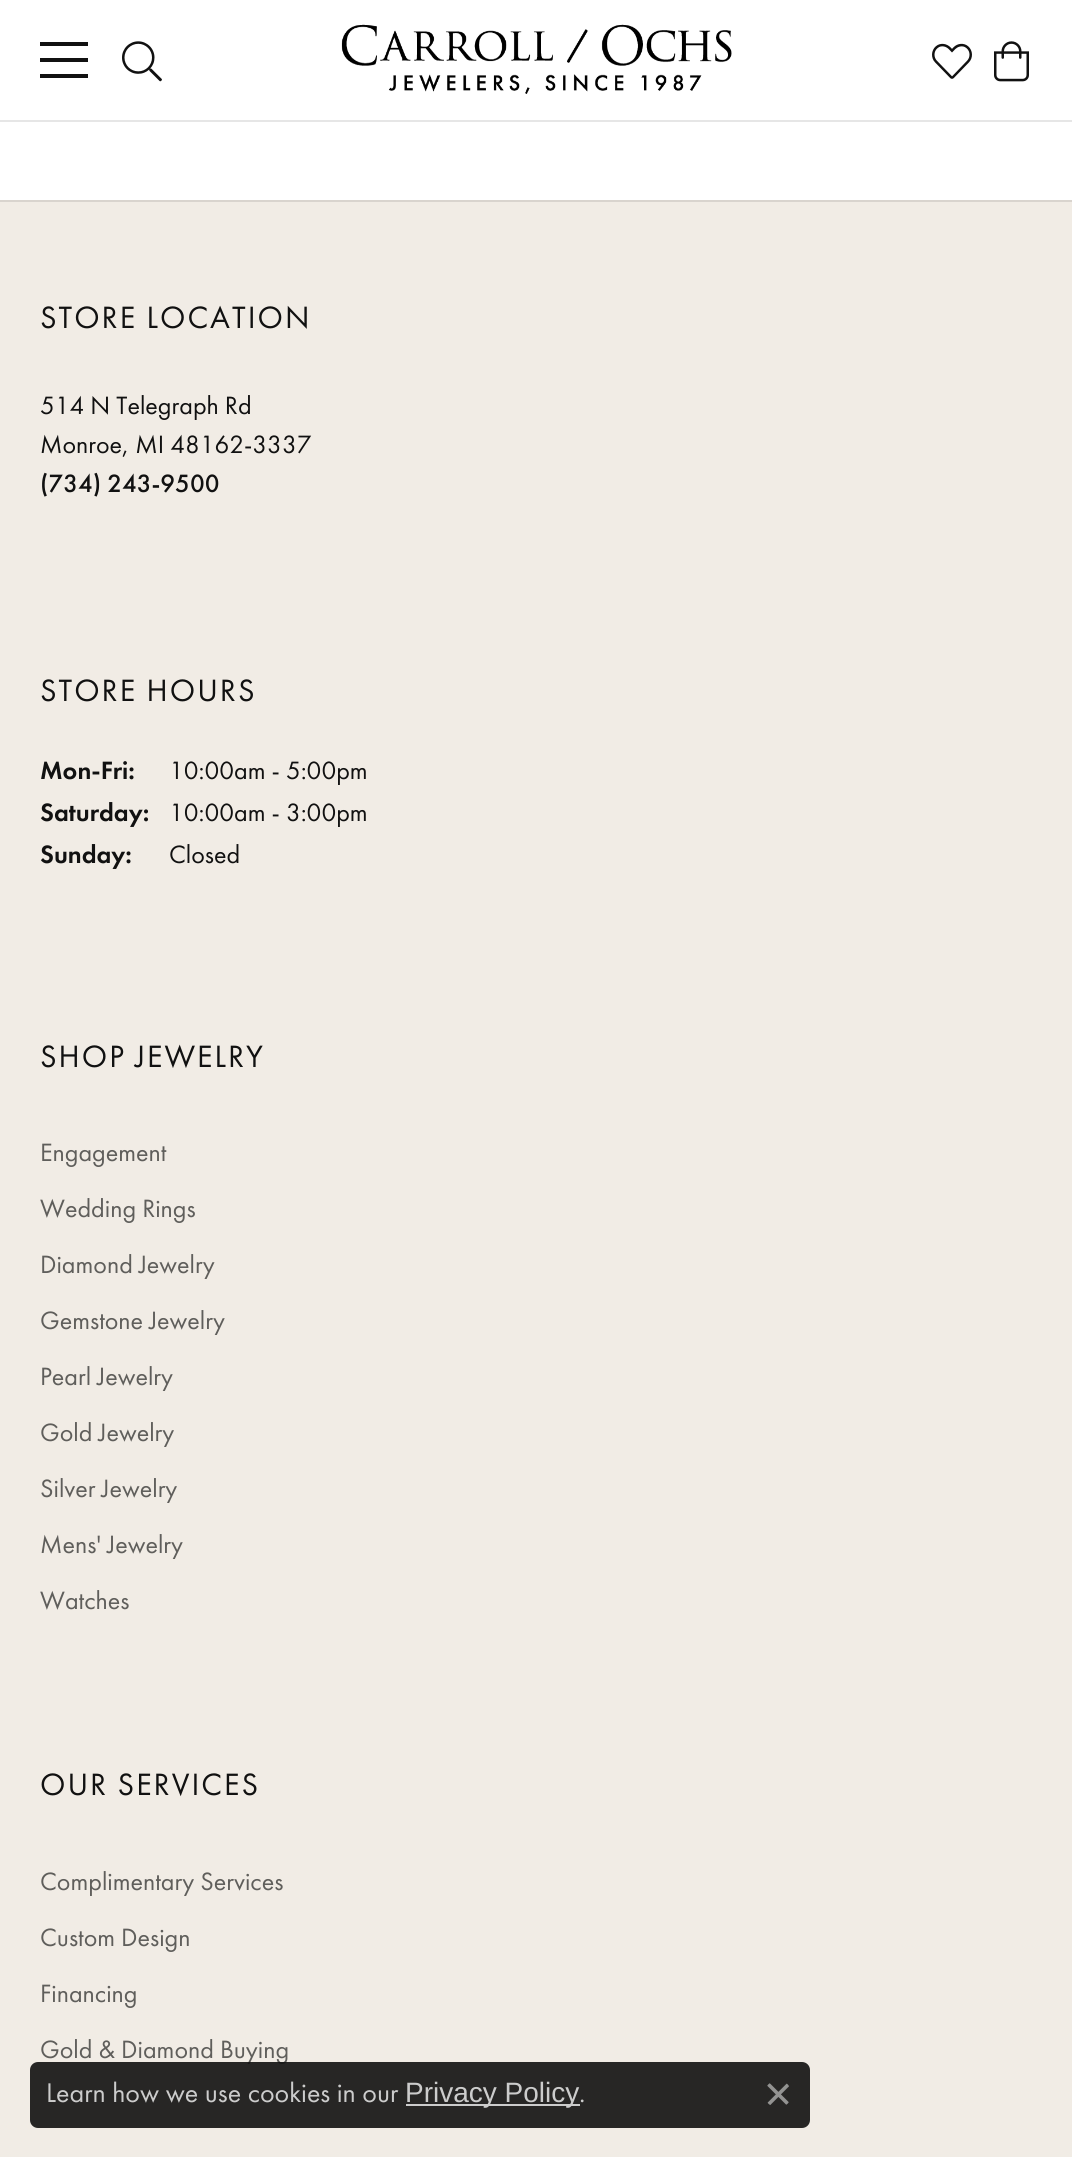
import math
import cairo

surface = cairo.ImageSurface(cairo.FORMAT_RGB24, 1072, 2157)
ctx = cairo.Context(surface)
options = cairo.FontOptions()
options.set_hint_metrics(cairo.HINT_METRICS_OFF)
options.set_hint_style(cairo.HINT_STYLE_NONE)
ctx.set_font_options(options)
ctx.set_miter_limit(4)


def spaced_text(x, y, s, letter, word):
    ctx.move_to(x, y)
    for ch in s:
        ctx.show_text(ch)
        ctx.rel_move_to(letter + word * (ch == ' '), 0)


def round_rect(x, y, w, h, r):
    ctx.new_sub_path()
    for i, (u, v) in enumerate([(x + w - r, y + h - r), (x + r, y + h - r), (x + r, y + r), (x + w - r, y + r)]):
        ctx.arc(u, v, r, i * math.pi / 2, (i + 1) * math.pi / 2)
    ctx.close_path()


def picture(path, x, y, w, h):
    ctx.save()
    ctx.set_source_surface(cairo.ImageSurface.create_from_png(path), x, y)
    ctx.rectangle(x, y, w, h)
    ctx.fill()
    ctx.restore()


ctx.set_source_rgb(0.945, 0.925, 0.898)
ctx.paint()
ctx.rectangle(-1, -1, 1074, 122)
ctx.set_source_rgb(0.902, 0.902, 0.902)
ctx.stroke()
ctx.set_source_rgb(1, 1, 1)
ctx.rectangle(0, 0, 1072, 120)
ctx.fill()
picture("img1.png", 341, 24, 391, 70)
ctx.set_source_rgb(0.067, 0.067, 0.067)
ctx.rectangle(40, 42, 48, 4)
ctx.fill()
ctx.rectangle(40, 58, 48, 4)
ctx.fill()
ctx.rectangle(40, 74, 48, 4)
ctx.fill()
picture("img2.png", 122, 41, 40, 41)
picture("img3.png", 932, 43, 40, 36)
picture("img4.png", 994, 41, 35, 41)
ctx.set_source_rgb(1, 1, 1)
ctx.rectangle(0, 122, 1072, 78)
ctx.fill()
ctx.set_source_rgb(0.851, 0.831, 0.808)
ctx.rectangle(0, 200, 1072, 2)
ctx.fill()
ctx.select_font_face("Futura PT")
ctx.set_font_size(32)
ctx.set_source_rgb(0.067, 0.067, 0.067)
spaced_text(40, 328, "STORE LOCATION", 2, 0)
ctx.set_font_size(26)
ctx.move_to(40, 414)
ctx.show_text("514 N Telegraph Rd")
ctx.move_to(40, 453)
ctx.show_text("Monroe, MI 48162-3337")
ctx.select_font_face("Futura PT Medium")
ctx.move_to(40, 492)
ctx.show_text("(734) 243-9500")
ctx.select_font_face("Futura PT")
ctx.set_font_size(32)
spaced_text(40, 701, "STORE HOURS", 2, 0)
ctx.select_font_face("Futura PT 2 Medium")
ctx.set_font_size(26)
ctx.move_to(40, 779)
ctx.show_text("Mon-Fri:")
ctx.select_font_face("Futura PT")
ctx.move_to(169, 779)
ctx.show_text("10:00am - 5:00pm")
ctx.select_font_face("Futura PT 2 Medium")
ctx.move_to(40, 821)
ctx.show_text("Saturday:")
ctx.select_font_face("Futura PT")
ctx.move_to(169, 821)
ctx.show_text("10:00am - 3:00pm")
ctx.select_font_face("Futura PT 2 Medium")
ctx.move_to(40, 863)
ctx.show_text("Sunday:")
ctx.select_font_face("Futura PT")
ctx.move_to(169, 863)
ctx.show_text("Closed")
ctx.set_font_size(32)
spaced_text(40, 1067, "SHOP JEWELRY", 2, 0)
ctx.set_font_size(26)
ctx.set_source_rgb(0.373, 0.369, 0.357)
ctx.move_to(40, 1161)
ctx.show_text("Engagement")
ctx.move_to(40, 1217)
ctx.show_text("Wedding Rings")
ctx.move_to(40, 1273)
ctx.show_text("Diamond Jewelry")
ctx.move_to(40, 1329)
ctx.show_text("Gemstone Jewelry")
ctx.move_to(40, 1385)
ctx.show_text("Pearl Jewelry")
ctx.move_to(40, 1441)
ctx.show_text("Gold Jewelry")
ctx.move_to(40, 1497)
ctx.show_text("Silver Jewelry")
ctx.move_to(40, 1553)
ctx.show_text("Mens' Jewelry")
ctx.move_to(40, 1609)
ctx.show_text("Watches")
ctx.set_font_size(32)
ctx.set_source_rgb(0.067, 0.067, 0.067)
spaced_text(40, 1795, "OUR SERVICES", 2, 0)
ctx.set_font_size(26)
ctx.set_source_rgb(0.373, 0.369, 0.357)
ctx.move_to(40, 1890)
ctx.show_text("Complimentary Services")
ctx.move_to(40, 1946)
ctx.show_text("Custom Design")
ctx.move_to(40, 2002)
ctx.show_text("Financing")
ctx.move_to(40, 2058)
ctx.show_text("Gold & Diamond Buying")
ctx.set_source_rgba(0.067, 0.067, 0.067, 0.9)
round_rect(30, 2062, 780, 66, 8)
ctx.fill()
ctx.set_font_size(28)
ctx.set_source_rgb(0.8, 0.8, 0.8)
ctx.move_to(46, 2102)
ctx.show_text("Learn how we use cookies in our")
ctx.rectangle(406, 2104, 174, 2)
ctx.fill()
ctx.select_font_face("Liberation Sans")
ctx.move_to(405, 2102)
ctx.show_text("Privacy Policy")
ctx.select_font_face("Futura PT")
ctx.move_to(579, 2102)
ctx.show_text(".")
picture("img5.png", 767, 2083, 22, 22)
surface.write_to_png("page.png")
